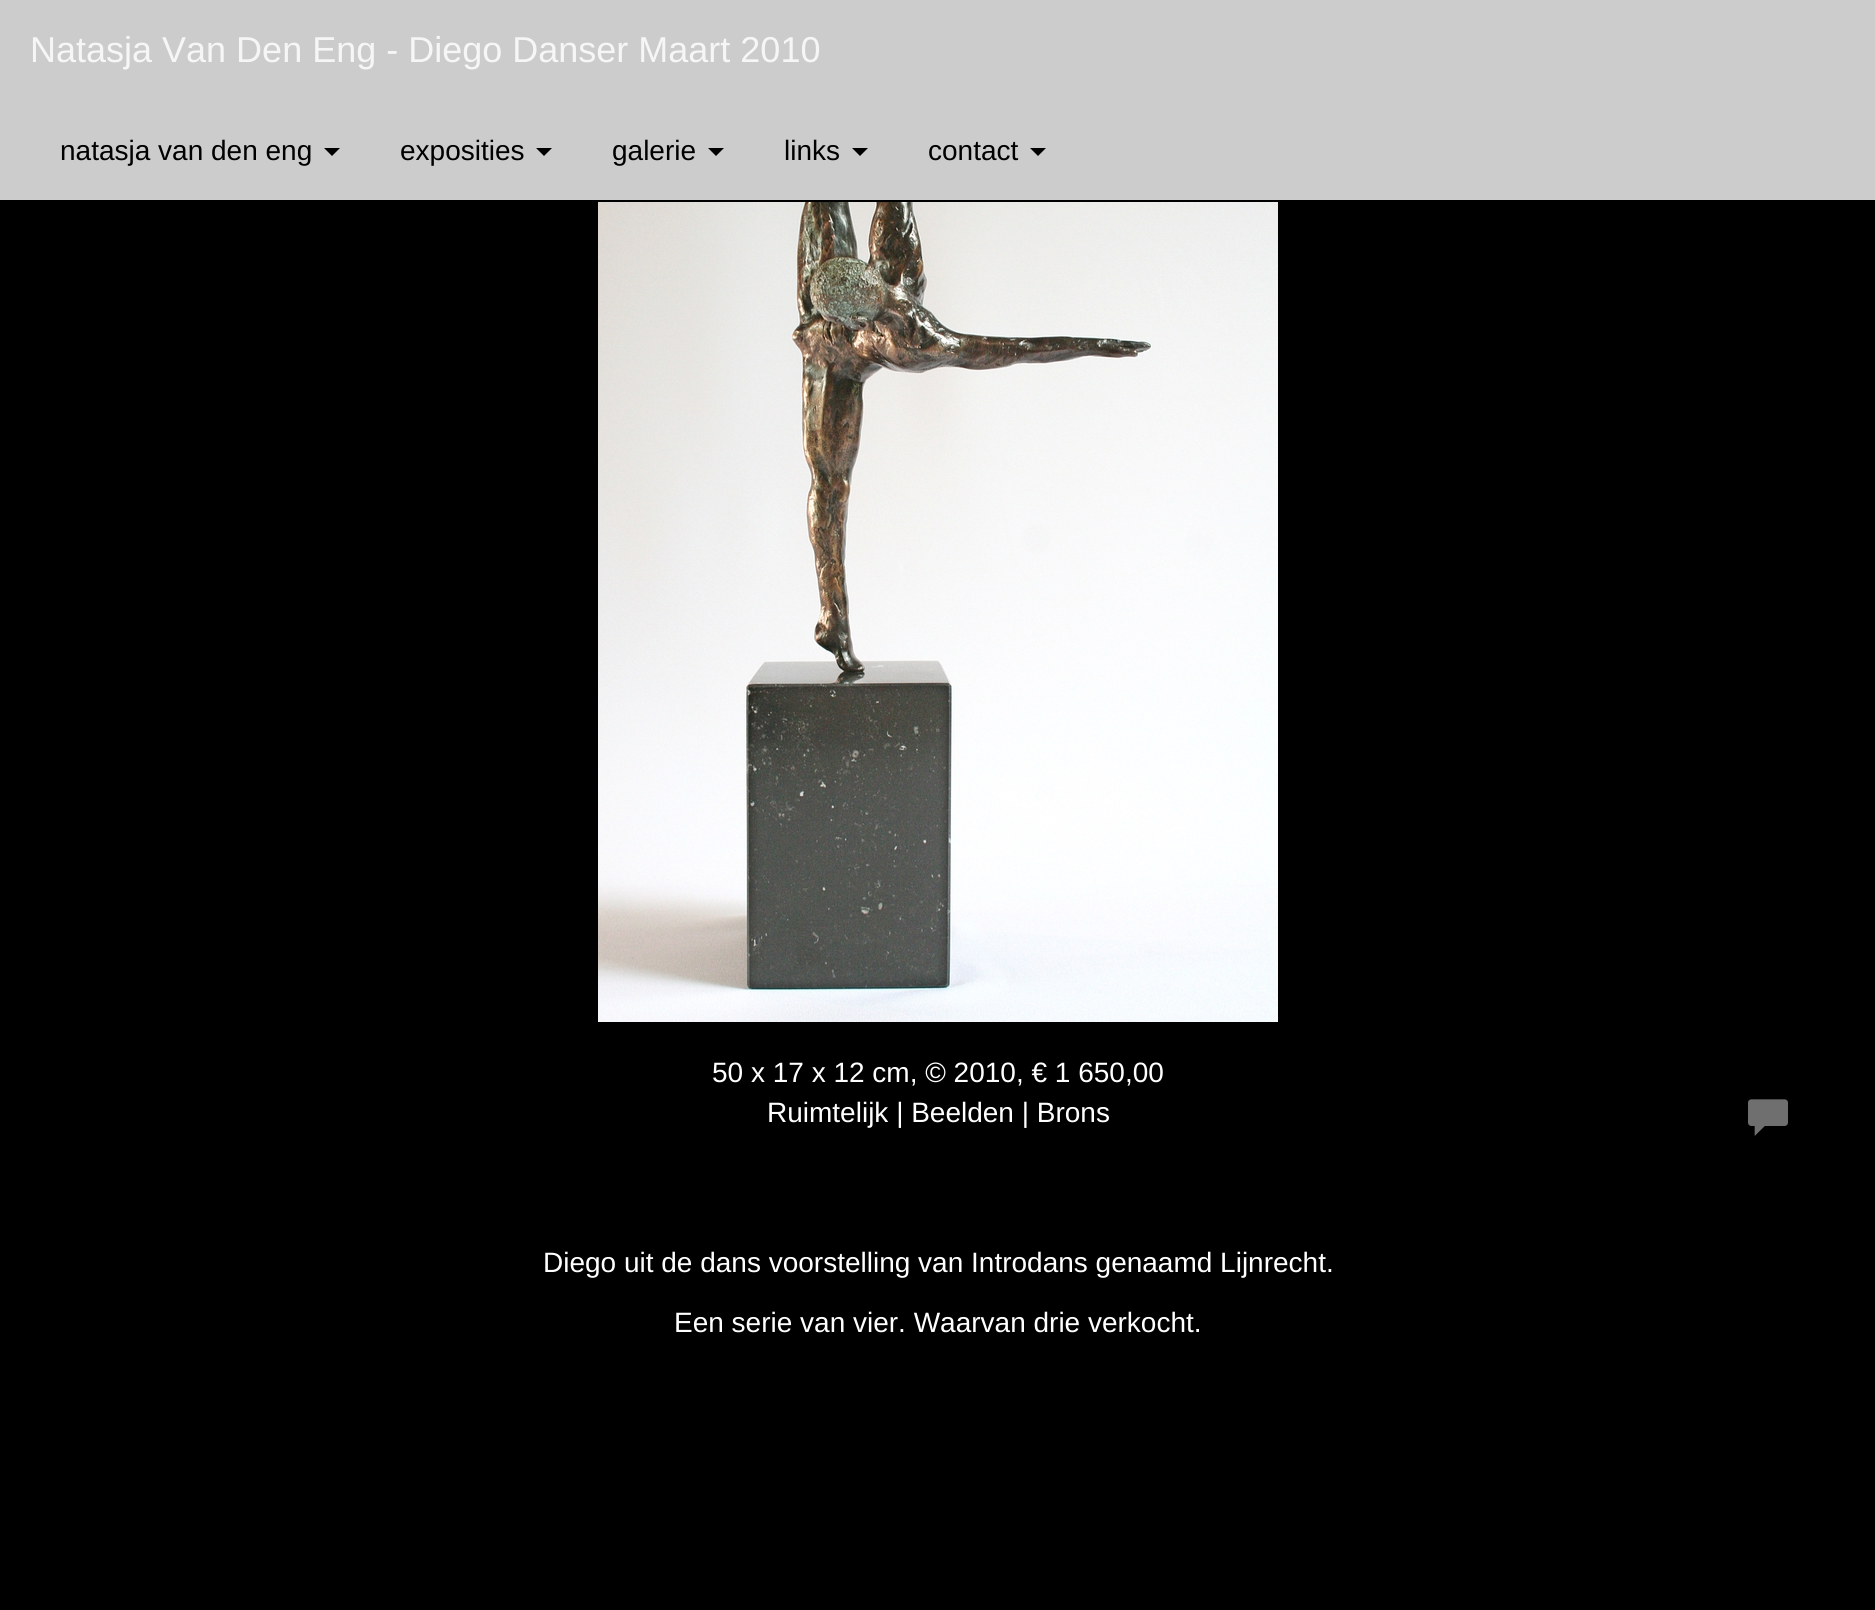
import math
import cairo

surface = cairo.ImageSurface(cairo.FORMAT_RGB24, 1875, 1610)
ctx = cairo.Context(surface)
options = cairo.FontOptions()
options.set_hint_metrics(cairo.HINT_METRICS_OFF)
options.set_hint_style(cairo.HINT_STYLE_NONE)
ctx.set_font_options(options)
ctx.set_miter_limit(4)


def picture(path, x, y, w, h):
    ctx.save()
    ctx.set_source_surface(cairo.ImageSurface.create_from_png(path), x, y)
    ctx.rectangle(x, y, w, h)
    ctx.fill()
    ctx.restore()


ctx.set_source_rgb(0, 0, 0)
ctx.paint()
ctx.set_source_rgb(0.8, 0.8, 0.8)
ctx.rectangle(0, 0, 1875, 200)
ctx.fill()
ctx.select_font_face("Liberation Sans")
ctx.set_font_size(36)
ctx.set_source_rgb(0.961, 0.961, 0.961)
ctx.move_to(30, 62)
ctx.show_text("Natasja Van Den Eng - Diego Danser Maart 2010")
ctx.set_font_size(28)
ctx.set_source_rgb(0, 0, 0)
ctx.move_to(60, 160)
ctx.show_text("natasja van den eng")
ctx.new_path()
ctx.move_to(324, 148)
ctx.line_to(340, 148)
ctx.line_to(332, 156)
ctx.close_path()
ctx.fill()
ctx.move_to(400, 160)
ctx.show_text("exposities")
ctx.new_path()
ctx.move_to(536, 148)
ctx.line_to(552, 148)
ctx.line_to(544, 156)
ctx.close_path()
ctx.fill()
ctx.move_to(612, 160)
ctx.show_text("galerie")
ctx.new_path()
ctx.move_to(708, 148)
ctx.line_to(724, 148)
ctx.line_to(716, 156)
ctx.close_path()
ctx.fill()
ctx.move_to(784, 160)
ctx.show_text("links")
ctx.new_path()
ctx.move_to(852, 148)
ctx.line_to(868, 148)
ctx.line_to(860, 156)
ctx.close_path()
ctx.fill()
ctx.move_to(928, 160)
ctx.show_text("contact")
ctx.new_path()
ctx.move_to(1030, 148)
ctx.line_to(1046, 148)
ctx.line_to(1038, 156)
ctx.close_path()
ctx.fill()
picture("img1.png", 598, 202, 680, 820)
ctx.set_source_rgb(1, 1, 1)
ctx.move_to(712, 1082)
ctx.show_text("50 x 17 x 12 cm, © 2010, € 1 650,00")
ctx.move_to(767, 1122)
ctx.show_text("Ruimtelijk | Beelden | Brons")
picture("img2.png", 1748, 1099, 40, 37)
ctx.move_to(543, 1272)
ctx.show_text("Diego uit de dans voorstelling van Introdans genaamd Lijnrecht.")
ctx.move_to(674, 1332)
ctx.show_text("Een serie van vier. Waarvan drie verkocht.")
surface.write_to_png("page.png")
